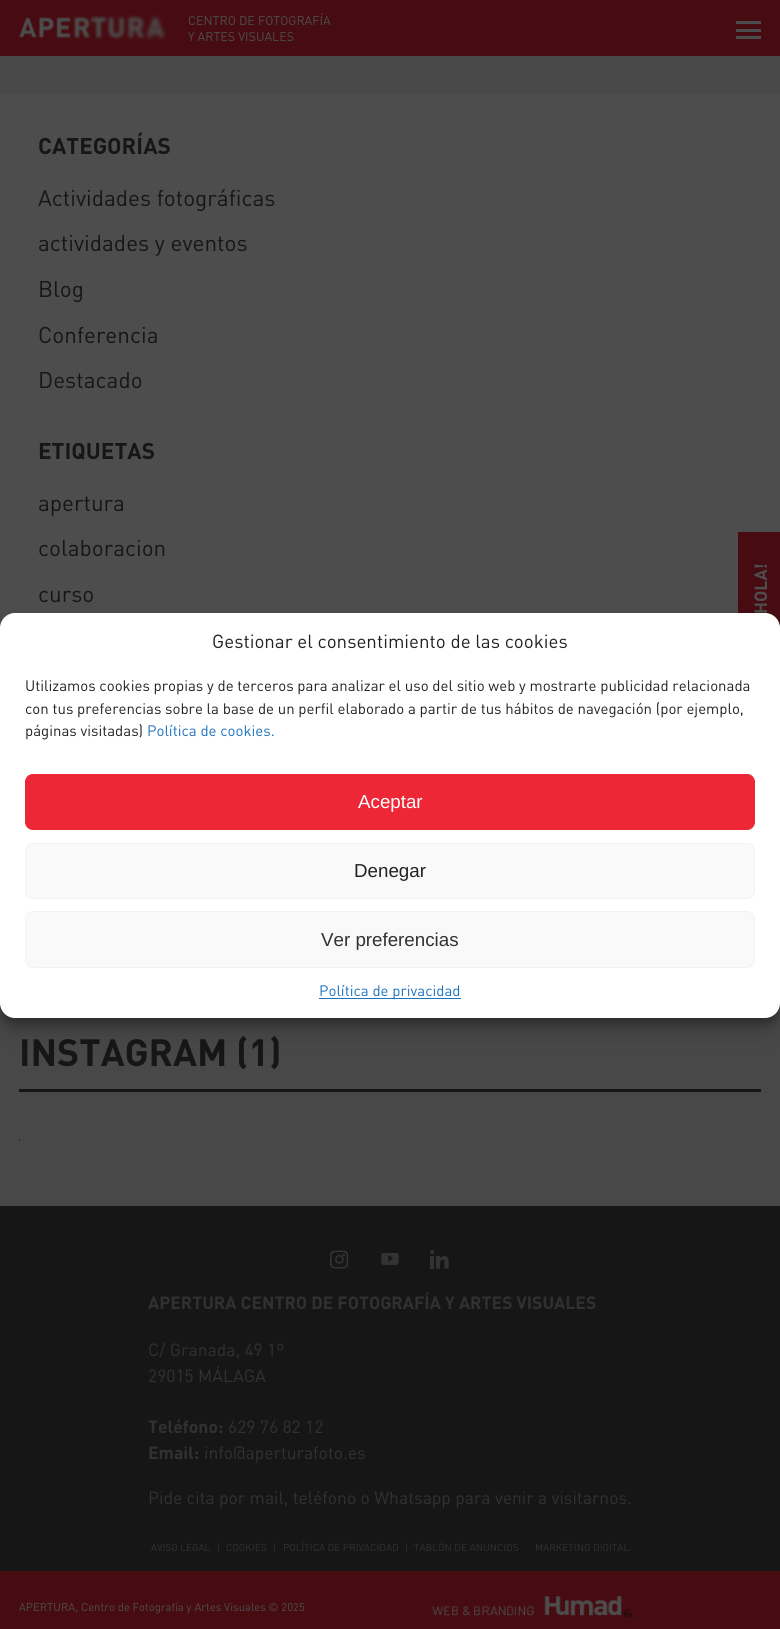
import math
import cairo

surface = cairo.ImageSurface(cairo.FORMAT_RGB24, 780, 1629)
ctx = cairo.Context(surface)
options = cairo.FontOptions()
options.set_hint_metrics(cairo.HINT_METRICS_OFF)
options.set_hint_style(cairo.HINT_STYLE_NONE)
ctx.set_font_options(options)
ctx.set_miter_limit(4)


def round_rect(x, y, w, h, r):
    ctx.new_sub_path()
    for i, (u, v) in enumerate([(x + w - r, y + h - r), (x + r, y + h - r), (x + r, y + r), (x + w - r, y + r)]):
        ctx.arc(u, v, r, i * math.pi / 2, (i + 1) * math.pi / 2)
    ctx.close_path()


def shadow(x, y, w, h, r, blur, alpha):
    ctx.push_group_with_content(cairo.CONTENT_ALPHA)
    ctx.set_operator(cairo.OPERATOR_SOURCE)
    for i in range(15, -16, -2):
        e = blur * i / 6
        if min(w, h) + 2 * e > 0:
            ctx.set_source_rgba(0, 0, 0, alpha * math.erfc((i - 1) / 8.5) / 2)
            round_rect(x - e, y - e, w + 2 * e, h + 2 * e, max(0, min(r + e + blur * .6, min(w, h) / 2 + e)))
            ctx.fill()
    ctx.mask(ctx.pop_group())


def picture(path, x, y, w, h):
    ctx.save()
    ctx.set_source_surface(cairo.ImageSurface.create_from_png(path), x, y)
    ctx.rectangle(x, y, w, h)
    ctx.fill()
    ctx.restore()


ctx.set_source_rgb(0.282, 0.282, 0.282)
ctx.paint()
ctx.set_source_rgb(0.278, 0.047, 0.067)
ctx.rectangle(0, 0, 780, 56)
ctx.fill()
picture("img1.png", 18, 14, 149, 27)
ctx.select_font_face("DIN")
ctx.set_font_size(12.5)
ctx.set_source_rgb(0.302, 0.302, 0.302)
ctx.move_to(188, 25)
ctx.show_text("CENTRO DE FOTOGRAFÍA")
ctx.move_to(188, 41)
ctx.show_text("Y ARTES VISUALES")
ctx.rectangle(736, 29, 25, 3)
ctx.fill()
ctx.rectangle(736, 21, 25, 3)
ctx.fill()
ctx.rectangle(736, 36, 25, 3)
ctx.fill()
ctx.rectangle(0, 94, 780, 534)
ctx.fill()
ctx.select_font_face("DIN", cairo.FONT_SLANT_NORMAL, cairo.FONT_WEIGHT_BOLD)
ctx.set_font_size(22.5)
ctx.set_source_rgb(0.086, 0.086, 0.086)
ctx.move_to(38, 154)
ctx.show_text("CATEGORÍAS")
ctx.select_font_face("DIN")
ctx.move_to(38, 206)
ctx.show_text("Actividades fotográficas")
ctx.move_to(38, 251)
ctx.show_text("actividades y eventos")
ctx.move_to(38, 297)
ctx.show_text("Blog")
ctx.move_to(38, 343)
ctx.show_text("Conferencia")
ctx.move_to(38, 388)
ctx.show_text("Destacado")
ctx.select_font_face("DIN", cairo.FONT_SLANT_NORMAL, cairo.FONT_WEIGHT_BOLD)
ctx.move_to(38, 459)
ctx.show_text("ETIQUETAS")
ctx.select_font_face("DIN")
ctx.move_to(38, 511)
ctx.show_text("apertura")
ctx.move_to(38, 556)
ctx.show_text("colaboracion")
ctx.move_to(38, 602)
ctx.show_text("curso")
ctx.rectangle(19, 1089, 742, 3)
ctx.fill()
ctx.select_font_face("DIN", cairo.FONT_SLANT_NORMAL, cairo.FONT_WEIGHT_BOLD)
ctx.set_font_size(37.5)
ctx.move_to(19, 1066)
ctx.show_text("INSTAGRAM (1)")
picture("img2.png", 19, 1139, 1, 3)
ctx.set_source_rgb(0.278, 0.047, 0.067)
ctx.rectangle(738, 532, 42, 96)
ctx.fill()
ctx.set_font_size(17.5)
ctx.set_source_rgb(0.302, 0.302, 0.302)
ctx.save()
ctx.translate(767, 620)
ctx.rotate(-90 * math.pi / 180)
ctx.move_to(0, 0)
ctx.show_text("¡HOLA!")
ctx.restore()
ctx.set_source_rgb(0.086, 0.086, 0.086)
ctx.rectangle(0, 1206, 780, 365)
ctx.fill()
picture("img3.png", 330, 1250, 19, 19)
picture("img4.png", 381, 1253, 18, 12)
picture("img5.png", 430, 1250, 19, 19)
ctx.set_source_rgb(0.192, 0.192, 0.192)
ctx.move_to(148, 1309)
ctx.show_text("APERTURA CENTRO DE FOTOGRAFÍA Y ARTES VISUALES")
ctx.select_font_face("DIN")
ctx.move_to(148, 1356)
ctx.show_text("C/ Granada, 49 1º")
ctx.move_to(148, 1382)
ctx.show_text("29015 MÁLAGA")
ctx.select_font_face("DIN", cairo.FONT_SLANT_NORMAL, cairo.FONT_WEIGHT_BOLD)
ctx.move_to(148, 1433)
ctx.show_text("Teléfono:")
ctx.select_font_face("DIN")
ctx.move_to(228, 1433)
ctx.show_text("629 76 82 12")
ctx.select_font_face("DIN", cairo.FONT_SLANT_NORMAL, cairo.FONT_WEIGHT_BOLD)
ctx.move_to(148, 1459)
ctx.show_text("Email:")
ctx.select_font_face("DIN")
ctx.move_to(204, 1459)
ctx.show_text("info@aperturafoto.es")
ctx.move_to(148, 1504)
ctx.show_text("Pide cita por mail, teléfono o Whatsapp para venir a visitarnos.")
ctx.set_font_size(10)
ctx.move_to(151, 1551)
ctx.show_text("AVISO LEGAL")
ctx.move_to(217, 1551)
ctx.show_text("|")
ctx.move_to(226, 1551)
ctx.show_text("COOKIES")
ctx.move_to(273, 1551)
ctx.show_text("|")
ctx.move_to(283, 1551)
ctx.show_text("POLÍTICA DE PRIVACIDAD")
ctx.move_to(405, 1551)
ctx.show_text("|")
ctx.move_to(414, 1551)
ctx.show_text("TABLÓN DE ANUNCIOS")
ctx.move_to(535, 1551)
ctx.show_text("MARKETING DIGITAL")
ctx.set_source_rgb(0.278, 0.047, 0.067)
ctx.rectangle(0, 1571, 780, 58)
ctx.fill()
ctx.set_font_size(11.25)
ctx.set_source_rgb(0.302, 0.302, 0.302)
ctx.move_to(19, 1611)
ctx.show_text("APERTURA, Centro de Fotografía y Artes Visuales © 2025")
picture("img6.png", 432, 1596, 201, 22)
ctx.set_source_rgb(0, 0, 0)
shadow(0, 620, 780, 405, 15, 4, 0.23)
shadow(0, 625, 780, 405, 15, 12.5, 0.19)
ctx.set_source_rgb(1, 1, 1)
round_rect(0, 613, 780, 405, 15)
ctx.fill()
ctx.set_font_size(18.75)
ctx.set_source_rgb(0.133, 0.133, 0.133)
ctx.move_to(212, 648)
ctx.show_text("Gestionar el consentimiento de las cookies")
ctx.set_font_size(15)
ctx.move_to(25, 691)
ctx.show_text("Utilizamos cookies propias y de terceros para analizar el uso del sitio web y mostrarte publicidad relacionada")
ctx.move_to(25, 714)
ctx.show_text("con tus preferencias sobre la base de un perfil elaborado a partir de tus hábitos de navegación (por ejemplo,")
ctx.move_to(25, 736)
ctx.show_text("páginas visitadas)")
ctx.set_source_rgb(0.118, 0.451, 0.745)
ctx.move_to(147, 736)
ctx.show_text("Política de cookies.")
ctx.set_source_rgb(0.933, 0.153, 0.216)
round_rect(25.5, 774.5, 729, 55, 7.5)
ctx.fill_preserve()
ctx.set_line_width(1)
ctx.stroke()
ctx.select_font_face("Liberation Sans")
ctx.set_font_size(18.75)
ctx.set_source_rgb(1, 1, 1)
ctx.move_to(358, 808)
ctx.show_text("Aceptar")
ctx.set_source_rgb(0.976, 0.976, 0.976)
round_rect(25.5, 843.5, 729, 55, 7.5)
ctx.fill_preserve()
ctx.set_source_rgb(0.949, 0.949, 0.949)
ctx.stroke()
ctx.set_source_rgb(0.133, 0.133, 0.133)
ctx.move_to(354, 877)
ctx.show_text("Denegar")
ctx.set_source_rgb(0.976, 0.976, 0.976)
round_rect(25.5, 911.5, 729, 56, 7.5)
ctx.fill_preserve()
ctx.set_source_rgb(0.949, 0.949, 0.949)
ctx.stroke()
ctx.set_source_rgb(0.192, 0.192, 0.192)
ctx.move_to(321, 946)
ctx.show_text("Ver preferencias")
ctx.set_source_rgb(0.118, 0.451, 0.745)
ctx.rectangle(319, 998, 142, 1)
ctx.fill()
ctx.select_font_face("DIN")
ctx.set_font_size(15)
ctx.move_to(319, 996)
ctx.show_text("Política de privacidad")
surface.write_to_png("page.png")
